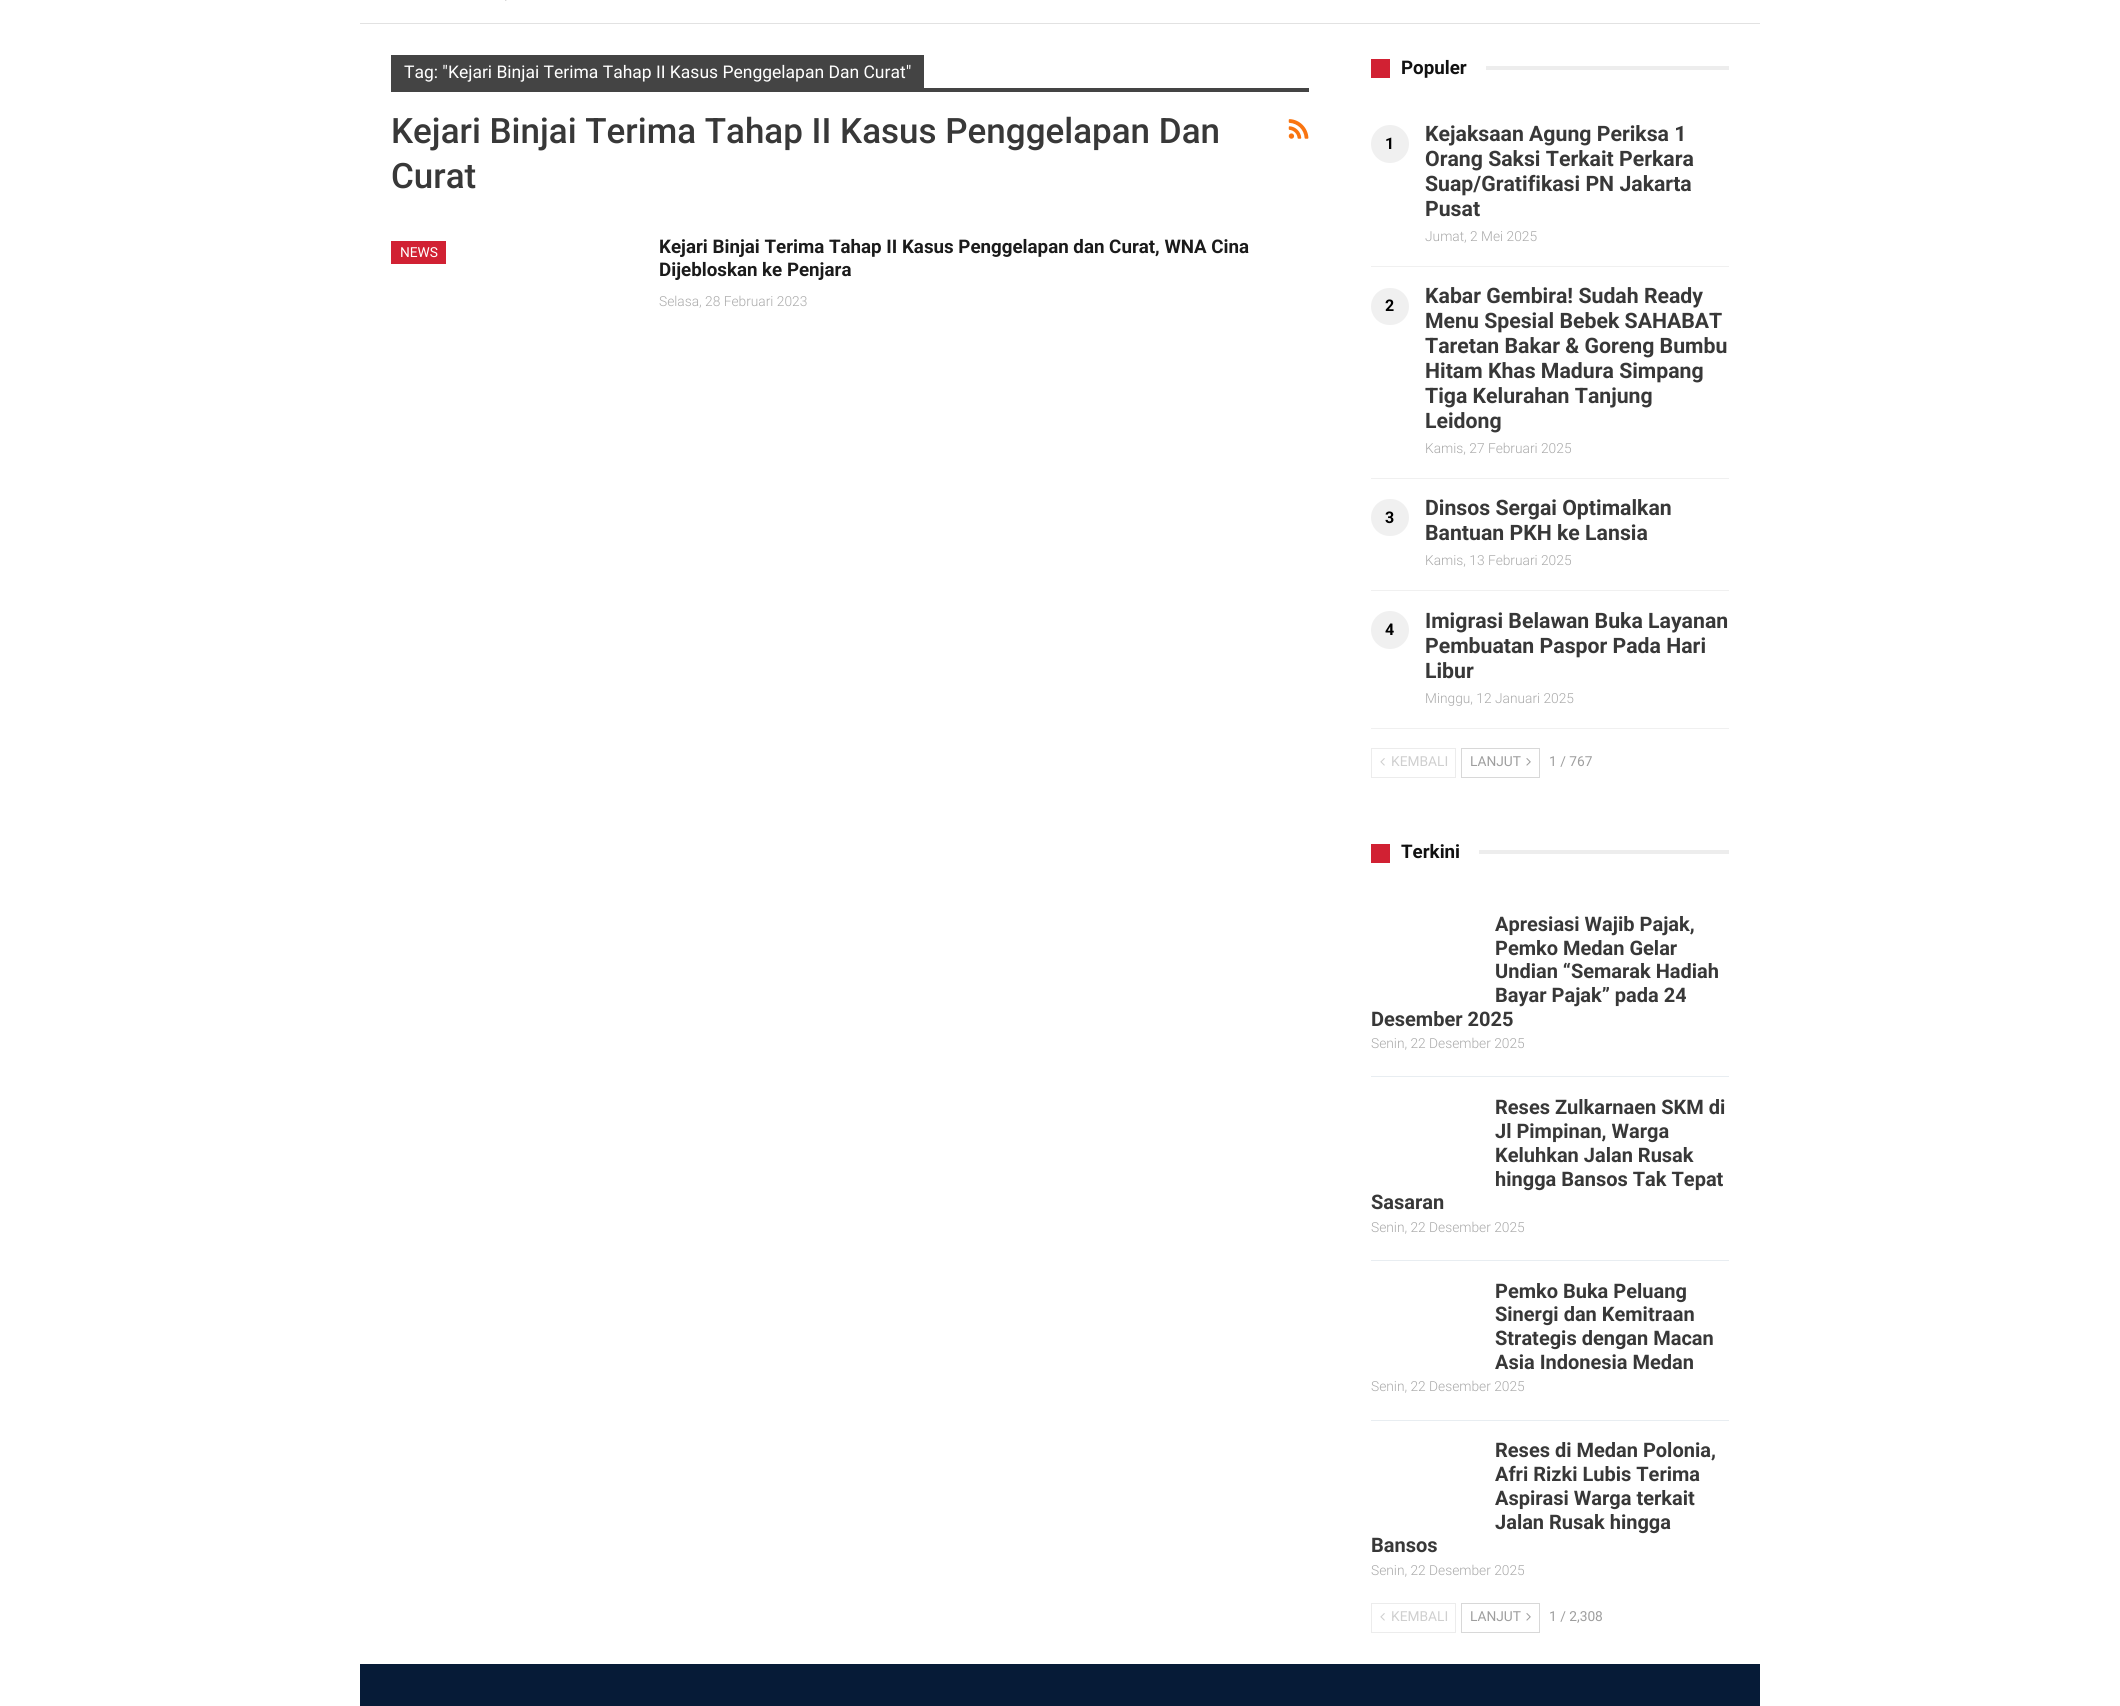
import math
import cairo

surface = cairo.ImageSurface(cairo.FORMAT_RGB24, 2120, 1706)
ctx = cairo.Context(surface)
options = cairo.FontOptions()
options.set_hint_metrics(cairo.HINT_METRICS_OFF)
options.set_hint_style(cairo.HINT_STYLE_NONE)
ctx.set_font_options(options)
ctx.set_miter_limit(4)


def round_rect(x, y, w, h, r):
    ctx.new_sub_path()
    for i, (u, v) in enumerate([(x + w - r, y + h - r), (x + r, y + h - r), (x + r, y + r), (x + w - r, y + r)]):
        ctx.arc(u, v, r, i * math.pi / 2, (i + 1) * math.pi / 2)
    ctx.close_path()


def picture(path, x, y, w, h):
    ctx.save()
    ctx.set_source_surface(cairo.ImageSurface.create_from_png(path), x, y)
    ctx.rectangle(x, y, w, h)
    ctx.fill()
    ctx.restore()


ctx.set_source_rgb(1, 1, 1)
ctx.paint()
ctx.set_source_rgb(0.886, 0.886, 0.886)
ctx.rectangle(360, 23, 1400, 1)
ctx.fill()
picture("img1.png", 505, 0, 2, 1)
ctx.set_source_rgb(0.267, 0.267, 0.267)
ctx.rectangle(391, 55, 533, 33)
ctx.fill()
ctx.select_font_face("Roboto")
ctx.set_font_size(17.5)
ctx.set_source_rgb(1, 1, 1)
ctx.move_to(404, 78)
ctx.show_text("Tag: \"Kejari Binjai Terima Tahap II Kasus Penggelapan Dan Curat\"")
ctx.set_source_rgb(0.267, 0.267, 0.267)
ctx.rectangle(391, 88, 918, 4)
ctx.fill()
ctx.select_font_face("Roboto Medium")
ctx.set_font_size(35)
ctx.set_source_rgb(0.22, 0.22, 0.22)
ctx.move_to(391, 143)
ctx.show_text("Kejari Binjai Terima Tahap II Kasus Penggelapan Dan")
ctx.move_to(391, 188)
ctx.show_text("Curat")
picture("img2.png", 1288, 119, 21, 20)
ctx.set_source_rgb(0.82, 0.129, 0.2)
ctx.rectangle(391, 241, 55, 23)
ctx.fill()
ctx.select_font_face("Roboto")
ctx.set_font_size(13.75)
ctx.set_source_rgb(1, 1, 1)
ctx.move_to(400, 257)
ctx.show_text("NEWS")
ctx.select_font_face("Roboto", cairo.FONT_SLANT_NORMAL, cairo.FONT_WEIGHT_BOLD)
ctx.set_font_size(18.75)
ctx.set_source_rgb(0.106, 0.106, 0.106)
ctx.move_to(659, 253)
ctx.show_text("Kejari Binjai Terima Tahap II Kasus Penggelapan dan Curat, WNA Cina")
ctx.move_to(659, 276)
ctx.show_text("Dijebloskan ke Penjara")
ctx.select_font_face("Roboto Light")
ctx.set_font_size(13.75)
ctx.set_source_rgb(0.667, 0.667, 0.667)
ctx.move_to(659, 306)
ctx.show_text("Selasa, 28 Februari 2023")
ctx.set_source_rgb(0.82, 0.129, 0.2)
ctx.rectangle(1371, 59, 19, 19)
ctx.fill()
ctx.select_font_face("Roboto", cairo.FONT_SLANT_NORMAL, cairo.FONT_WEIGHT_BOLD)
ctx.set_font_size(18.75)
ctx.set_source_rgb(0.067, 0.067, 0.067)
ctx.move_to(1401, 74)
ctx.show_text("Populer")
ctx.set_source_rgb(0.929, 0.929, 0.929)
ctx.rectangle(1486, 66, 243, 4)
ctx.fill()
ctx.set_source_rgb(0.941, 0.941, 0.941)
ctx.rectangle(1371, 266, 358, 1)
ctx.fill()
ctx.arc(1390, 144, 19, 0, 2 * math.pi)
ctx.fill()
ctx.set_font_size(16)
ctx.set_source_rgb(0, 0, 0)
ctx.move_to(1385, 149)
ctx.show_text("1")
ctx.set_font_size(21.25)
ctx.set_source_rgb(0.22, 0.22, 0.22)
ctx.move_to(1425, 141)
ctx.show_text("Kejaksaan Agung Periksa 1")
ctx.move_to(1425, 166)
ctx.show_text("Orang Saksi Terkait Perkara")
ctx.move_to(1425, 191)
ctx.show_text("Suap/Gratifikasi PN Jakarta")
ctx.move_to(1425, 216)
ctx.show_text("Pusat")
ctx.select_font_face("Roboto Light")
ctx.set_font_size(13.75)
ctx.set_source_rgb(0.667, 0.667, 0.667)
ctx.move_to(1425, 241)
ctx.show_text("Jumat, 2 Mei 2025")
ctx.set_source_rgb(0.941, 0.941, 0.941)
ctx.rectangle(1371, 478, 358, 1)
ctx.fill()
round_rect(1371, 288, 38, 37, 18.5)
ctx.fill()
ctx.select_font_face("Roboto", cairo.FONT_SLANT_NORMAL, cairo.FONT_WEIGHT_BOLD)
ctx.set_font_size(16)
ctx.set_source_rgb(0, 0, 0)
ctx.move_to(1385, 311)
ctx.show_text("2")
ctx.set_font_size(21.25)
ctx.set_source_rgb(0.22, 0.22, 0.22)
ctx.move_to(1425, 303)
ctx.show_text("Kabar Gembira! Sudah Ready")
ctx.move_to(1425, 328)
ctx.show_text("Menu Spesial Bebek SAHABAT")
ctx.move_to(1425, 353)
ctx.show_text("Taretan Bakar & Goreng Bumbu")
ctx.move_to(1425, 378)
ctx.show_text("Hitam Khas Madura Simpang")
ctx.move_to(1425, 403)
ctx.show_text("Tiga Kelurahan Tanjung")
ctx.move_to(1425, 428)
ctx.show_text("Leidong")
ctx.select_font_face("Roboto Light")
ctx.set_font_size(13.75)
ctx.set_source_rgb(0.667, 0.667, 0.667)
ctx.move_to(1425, 453)
ctx.show_text("Kamis, 27 Februari 2025")
ctx.set_source_rgb(0.941, 0.941, 0.941)
ctx.rectangle(1371, 590, 358, 1)
ctx.fill()
round_rect(1371, 499, 38, 37, 18.5)
ctx.fill()
ctx.select_font_face("Roboto", cairo.FONT_SLANT_NORMAL, cairo.FONT_WEIGHT_BOLD)
ctx.set_font_size(16)
ctx.set_source_rgb(0, 0, 0)
ctx.move_to(1385, 523)
ctx.show_text("3")
ctx.set_font_size(21.25)
ctx.set_source_rgb(0.22, 0.22, 0.22)
ctx.move_to(1425, 515)
ctx.show_text("Dinsos Sergai Optimalkan")
ctx.move_to(1425, 540)
ctx.show_text("Bantuan PKH ke Lansia")
ctx.select_font_face("Roboto Light")
ctx.set_font_size(13.75)
ctx.set_source_rgb(0.667, 0.667, 0.667)
ctx.move_to(1425, 565)
ctx.show_text("Kamis, 13 Februari 2025")
ctx.set_source_rgb(0.941, 0.941, 0.941)
ctx.rectangle(1371, 728, 358, 1)
ctx.fill()
ctx.arc(1390, 630, 19, 0, 2 * math.pi)
ctx.fill()
ctx.select_font_face("Roboto", cairo.FONT_SLANT_NORMAL, cairo.FONT_WEIGHT_BOLD)
ctx.set_font_size(16)
ctx.set_source_rgb(0, 0, 0)
ctx.move_to(1385, 635)
ctx.show_text("4")
ctx.set_font_size(21.25)
ctx.set_source_rgb(0.22, 0.22, 0.22)
ctx.move_to(1425, 628)
ctx.show_text("Imigrasi Belawan Buka Layanan")
ctx.move_to(1425, 653)
ctx.show_text("Pembuatan Paspor Pada Hari")
ctx.move_to(1425, 678)
ctx.show_text("Libur")
ctx.select_font_face("Roboto Light")
ctx.set_font_size(13.75)
ctx.set_source_rgb(0.667, 0.667, 0.667)
ctx.move_to(1425, 703)
ctx.show_text("Minggu, 12 Januari 2025")
ctx.rectangle(1371.5, 748.5, 84, 29)
ctx.set_source_rgb(0.925, 0.925, 0.925)
ctx.set_line_width(1)
ctx.stroke()
picture("img3.png", 1380, 758, 5, 8)
ctx.select_font_face("Roboto")
ctx.set_source_rgb(0.812, 0.812, 0.812)
ctx.move_to(1391, 766)
ctx.show_text("KEMBALI")
ctx.rectangle(1461.5, 748.5, 78, 29)
ctx.set_source_rgb(0.847, 0.847, 0.847)
ctx.stroke()
ctx.set_source_rgb(0.62, 0.62, 0.62)
ctx.move_to(1470, 766)
ctx.show_text("LANJUT")
picture("img4.png", 1526, 758, 5, 8)
ctx.move_to(1549, 766)
ctx.show_text("1 / 767")
ctx.set_source_rgb(0.82, 0.129, 0.2)
ctx.rectangle(1371, 844, 19, 19)
ctx.fill()
ctx.select_font_face("Roboto", cairo.FONT_SLANT_NORMAL, cairo.FONT_WEIGHT_BOLD)
ctx.set_font_size(18.75)
ctx.set_source_rgb(0.067, 0.067, 0.067)
ctx.move_to(1401, 858)
ctx.show_text("Terkini")
ctx.set_source_rgb(0.929, 0.929, 0.929)
ctx.rectangle(1479, 850, 250, 4)
ctx.fill()
ctx.set_source_rgb(0.91, 0.929, 0.945)
ctx.rectangle(1371, 1076, 358, 1)
ctx.fill()
ctx.set_font_size(20)
ctx.set_source_rgb(0.22, 0.22, 0.22)
ctx.move_to(1495, 931)
ctx.show_text("Apresiasi Wajib Pajak,")
ctx.move_to(1495, 955)
ctx.show_text("Pemko Medan Gelar")
ctx.move_to(1495, 978)
ctx.show_text("Undian “Semarak Hadiah")
ctx.move_to(1495, 1002)
ctx.show_text("Bayar Pajak” pada 24")
ctx.move_to(1371, 1026)
ctx.show_text("Desember 2025")
ctx.select_font_face("Roboto Light")
ctx.set_font_size(13.75)
ctx.set_source_rgb(0.667, 0.667, 0.667)
ctx.move_to(1371, 1048)
ctx.show_text("Senin, 22 Desember 2025")
ctx.set_source_rgb(0.91, 0.929, 0.945)
ctx.rectangle(1371, 1260, 358, 1)
ctx.fill()
ctx.select_font_face("Roboto", cairo.FONT_SLANT_NORMAL, cairo.FONT_WEIGHT_BOLD)
ctx.set_font_size(20)
ctx.set_source_rgb(0.22, 0.22, 0.22)
ctx.move_to(1495, 1114)
ctx.show_text("Reses Zulkarnaen SKM di")
ctx.move_to(1495, 1138)
ctx.show_text("Jl Pimpinan, Warga")
ctx.move_to(1495, 1162)
ctx.show_text("Keluhkan Jalan Rusak")
ctx.move_to(1495, 1186)
ctx.show_text("hingga Bansos Tak Tepat")
ctx.move_to(1371, 1209)
ctx.show_text("Sasaran")
ctx.select_font_face("Roboto Light")
ctx.set_font_size(13.75)
ctx.set_source_rgb(0.667, 0.667, 0.667)
ctx.move_to(1371, 1232)
ctx.show_text("Senin, 22 Desember 2025")
ctx.set_source_rgb(0.91, 0.929, 0.945)
ctx.rectangle(1371, 1420, 358, 1)
ctx.fill()
ctx.select_font_face("Roboto", cairo.FONT_SLANT_NORMAL, cairo.FONT_WEIGHT_BOLD)
ctx.set_font_size(20)
ctx.set_source_rgb(0.22, 0.22, 0.22)
ctx.move_to(1495, 1298)
ctx.show_text("Pemko Buka Peluang")
ctx.move_to(1495, 1321)
ctx.show_text("Sinergi dan Kemitraan")
ctx.move_to(1495, 1345)
ctx.show_text("Strategis dengan Macan")
ctx.move_to(1495, 1369)
ctx.show_text("Asia Indonesia Medan")
ctx.select_font_face("Roboto Light")
ctx.set_font_size(13.75)
ctx.set_source_rgb(0.667, 0.667, 0.667)
ctx.move_to(1371, 1391)
ctx.show_text("Senin, 22 Desember 2025")
ctx.select_font_face("Roboto", cairo.FONT_SLANT_NORMAL, cairo.FONT_WEIGHT_BOLD)
ctx.set_font_size(20)
ctx.set_source_rgb(0.22, 0.22, 0.22)
ctx.move_to(1495, 1457)
ctx.show_text("Reses di Medan Polonia,")
ctx.move_to(1495, 1481)
ctx.show_text("Afri Rizki Lubis Terima")
ctx.move_to(1495, 1505)
ctx.show_text("Aspirasi Warga terkait")
ctx.move_to(1495, 1529)
ctx.show_text("Jalan Rusak hingga")
ctx.move_to(1371, 1552)
ctx.show_text("Bansos")
ctx.select_font_face("Roboto Light")
ctx.set_font_size(13.75)
ctx.set_source_rgb(0.667, 0.667, 0.667)
ctx.move_to(1371, 1575)
ctx.show_text("Senin, 22 Desember 2025")
ctx.rectangle(1371.5, 1603.5, 84, 29)
ctx.set_source_rgb(0.925, 0.925, 0.925)
ctx.stroke()
picture("img3.png", 1380, 1613, 5, 8)
ctx.select_font_face("Roboto")
ctx.set_source_rgb(0.812, 0.812, 0.812)
ctx.move_to(1391, 1621)
ctx.show_text("KEMBALI")
ctx.rectangle(1461.5, 1603.5, 78, 29)
ctx.set_source_rgb(0.847, 0.847, 0.847)
ctx.stroke()
ctx.set_source_rgb(0.62, 0.62, 0.62)
ctx.move_to(1470, 1621)
ctx.show_text("LANJUT")
picture("img4.png", 1526, 1613, 5, 8)
ctx.move_to(1549, 1621)
ctx.show_text("1 / 2,308")
ctx.set_source_rgb(0.027, 0.106, 0.216)
ctx.rectangle(360, 1664, 1400, 42)
ctx.fill()
surface.write_to_png("page.png")
